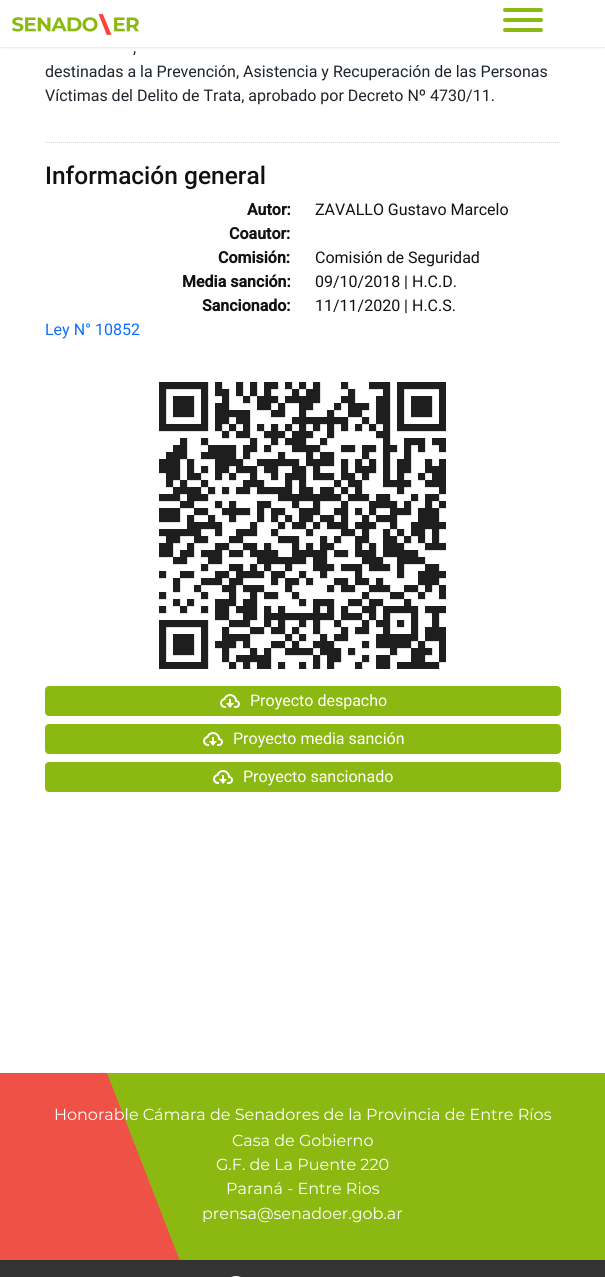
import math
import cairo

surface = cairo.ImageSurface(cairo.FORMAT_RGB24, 605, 1277)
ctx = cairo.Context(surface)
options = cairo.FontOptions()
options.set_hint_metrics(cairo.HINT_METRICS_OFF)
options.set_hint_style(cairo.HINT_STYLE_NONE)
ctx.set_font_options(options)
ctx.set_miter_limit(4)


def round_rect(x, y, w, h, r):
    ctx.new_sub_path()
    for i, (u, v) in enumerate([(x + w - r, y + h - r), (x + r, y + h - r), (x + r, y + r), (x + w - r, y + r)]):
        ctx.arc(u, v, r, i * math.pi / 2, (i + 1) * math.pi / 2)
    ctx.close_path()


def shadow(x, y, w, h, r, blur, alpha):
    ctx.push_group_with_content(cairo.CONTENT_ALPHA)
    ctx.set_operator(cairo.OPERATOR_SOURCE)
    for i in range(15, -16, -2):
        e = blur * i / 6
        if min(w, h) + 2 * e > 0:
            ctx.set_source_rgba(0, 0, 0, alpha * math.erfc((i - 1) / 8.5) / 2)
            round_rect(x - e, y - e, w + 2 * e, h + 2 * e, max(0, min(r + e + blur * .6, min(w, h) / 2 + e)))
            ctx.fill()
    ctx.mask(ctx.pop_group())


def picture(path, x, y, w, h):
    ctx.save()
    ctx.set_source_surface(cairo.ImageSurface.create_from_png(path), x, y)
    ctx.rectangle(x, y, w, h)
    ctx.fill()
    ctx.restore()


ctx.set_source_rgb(1, 1, 1)
ctx.paint()
ctx.set_source_rgb(0, 0, 0)
shadow(0, 1, 605, 47, 0, 1, 0.1)
ctx.set_source_rgb(1, 1, 1)
ctx.rectangle(0, 0, 605, 47)
ctx.fill()
picture("img1.png", 12, 14, 127, 21)
ctx.set_source_rgb(0.545, 0.725, 0.067)
round_rect(503, 8, 40, 4, 2)
ctx.fill()
round_rect(503, 18, 40, 4, 2)
ctx.fill()
round_rect(503, 28, 40, 4, 2)
ctx.fill()
ctx.new_path()
ctx.move_to(45, 142.5)
ctx.line_to(561, 142.5)
ctx.set_source_rgb(0.835, 0.835, 0.835)
ctx.set_line_width(1)
ctx.set_dash([1, 1])
ctx.stroke()
ctx.select_font_face("Roboto")
ctx.set_font_size(16)
ctx.set_source_rgb(0.118, 0.145, 0.173)
ctx.move_to(133, 53)
ctx.show_text(",")
ctx.move_to(45, 77)
ctx.show_text("destinadas a la Prevención, Asistencia y Recuperación de las Personas")
ctx.move_to(45, 101)
ctx.show_text("Víctimas del Delito de Trata, aprobado por Decreto Nº 4730/11.")
ctx.select_font_face("Roboto Medium")
ctx.set_font_size(24.5)
ctx.set_source_rgb(0.067, 0.067, 0.067)
ctx.move_to(45, 184)
ctx.show_text("Información general")
ctx.select_font_face("Roboto", cairo.FONT_SLANT_NORMAL, cairo.FONT_WEIGHT_BOLD)
ctx.set_font_size(16)
ctx.move_to(247, 215)
ctx.show_text("Autor:")
ctx.select_font_face("Roboto")
ctx.move_to(315, 215)
ctx.show_text("ZAVALLO Gustavo Marcelo")
ctx.select_font_face("Roboto", cairo.FONT_SLANT_NORMAL, cairo.FONT_WEIGHT_BOLD)
ctx.move_to(229, 239)
ctx.show_text("Coautor:")
ctx.move_to(218, 263)
ctx.show_text("Comisión:")
ctx.select_font_face("Roboto")
ctx.move_to(315, 263)
ctx.show_text("Comisión de Seguridad")
ctx.select_font_face("Roboto", cairo.FONT_SLANT_NORMAL, cairo.FONT_WEIGHT_BOLD)
ctx.move_to(182, 287)
ctx.show_text("Media sanción:")
ctx.select_font_face("Roboto")
ctx.move_to(315, 287)
ctx.show_text("09/10/2018 | H.C.D.")
ctx.select_font_face("Roboto", cairo.FONT_SLANT_NORMAL, cairo.FONT_WEIGHT_BOLD)
ctx.move_to(202, 311)
ctx.show_text("Sancionado:")
ctx.select_font_face("Roboto")
ctx.move_to(315, 311)
ctx.show_text("11/11/2020 | H.C.S.")
ctx.set_source_rgb(0.051, 0.431, 0.992)
ctx.move_to(45, 335)
ctx.show_text("Ley N° 10852")
picture("img2.png", 159, 382, 287, 287)
ctx.set_source_rgb(0.545, 0.725, 0.067)
round_rect(45, 686, 516, 30, 4)
ctx.fill()
picture("img3.png", 220, 694, 20, 14)
ctx.set_source_rgb(1, 1, 1)
ctx.move_to(250, 706)
ctx.show_text("Proyecto despacho")
ctx.set_source_rgb(0.545, 0.725, 0.067)
round_rect(45, 724, 516, 30, 4)
ctx.fill()
picture("img3.png", 203, 732, 20, 14)
ctx.set_source_rgb(1, 1, 1)
ctx.move_to(233, 744)
ctx.show_text("Proyecto media sanción")
ctx.set_source_rgb(0.545, 0.725, 0.067)
round_rect(45, 762, 516, 30, 4)
ctx.fill()
picture("img3.png", 213, 770, 20, 14)
ctx.set_source_rgb(1, 1, 1)
ctx.move_to(243, 782)
ctx.show_text("Proyecto sancionado")
ctx.set_source_rgb(0.545, 0.725, 0.067)
ctx.rectangle(107, 1073, 498, 187)
ctx.fill()
ctx.set_source_rgb(0.941, 0.318, 0.278)
ctx.set_fill_rule(cairo.FILL_RULE_EVEN_ODD)
ctx.new_path()
ctx.move_to(0, 1073)
ctx.line_to(107, 1073)
ctx.line_to(201, 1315)
ctx.line_to(0, 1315)
ctx.close_path()
ctx.fill()
ctx.select_font_face("Montserrat")
ctx.set_source_rgb(1, 1, 1)
ctx.move_to(54, 1120)
ctx.show_text("Honorable Cámara de Senadores de la Provincia de Entre Ríos")
ctx.move_to(232, 1146)
ctx.show_text("Casa de Gobierno")
ctx.move_to(216, 1170)
ctx.show_text("G.F. de La Puente 220")
ctx.move_to(226, 1194)
ctx.show_text("Paraná - Entre Rios")
ctx.move_to(202, 1219)
ctx.show_text("prensa@senadoer.gob.ar")
ctx.set_source_rgb(0.2, 0.2, 0.2)
ctx.rectangle(0, 1260, 605, 17)
ctx.fill()
picture("img4.png", 231, 1276, 10, 1)
surface.write_to_png("page.png")
